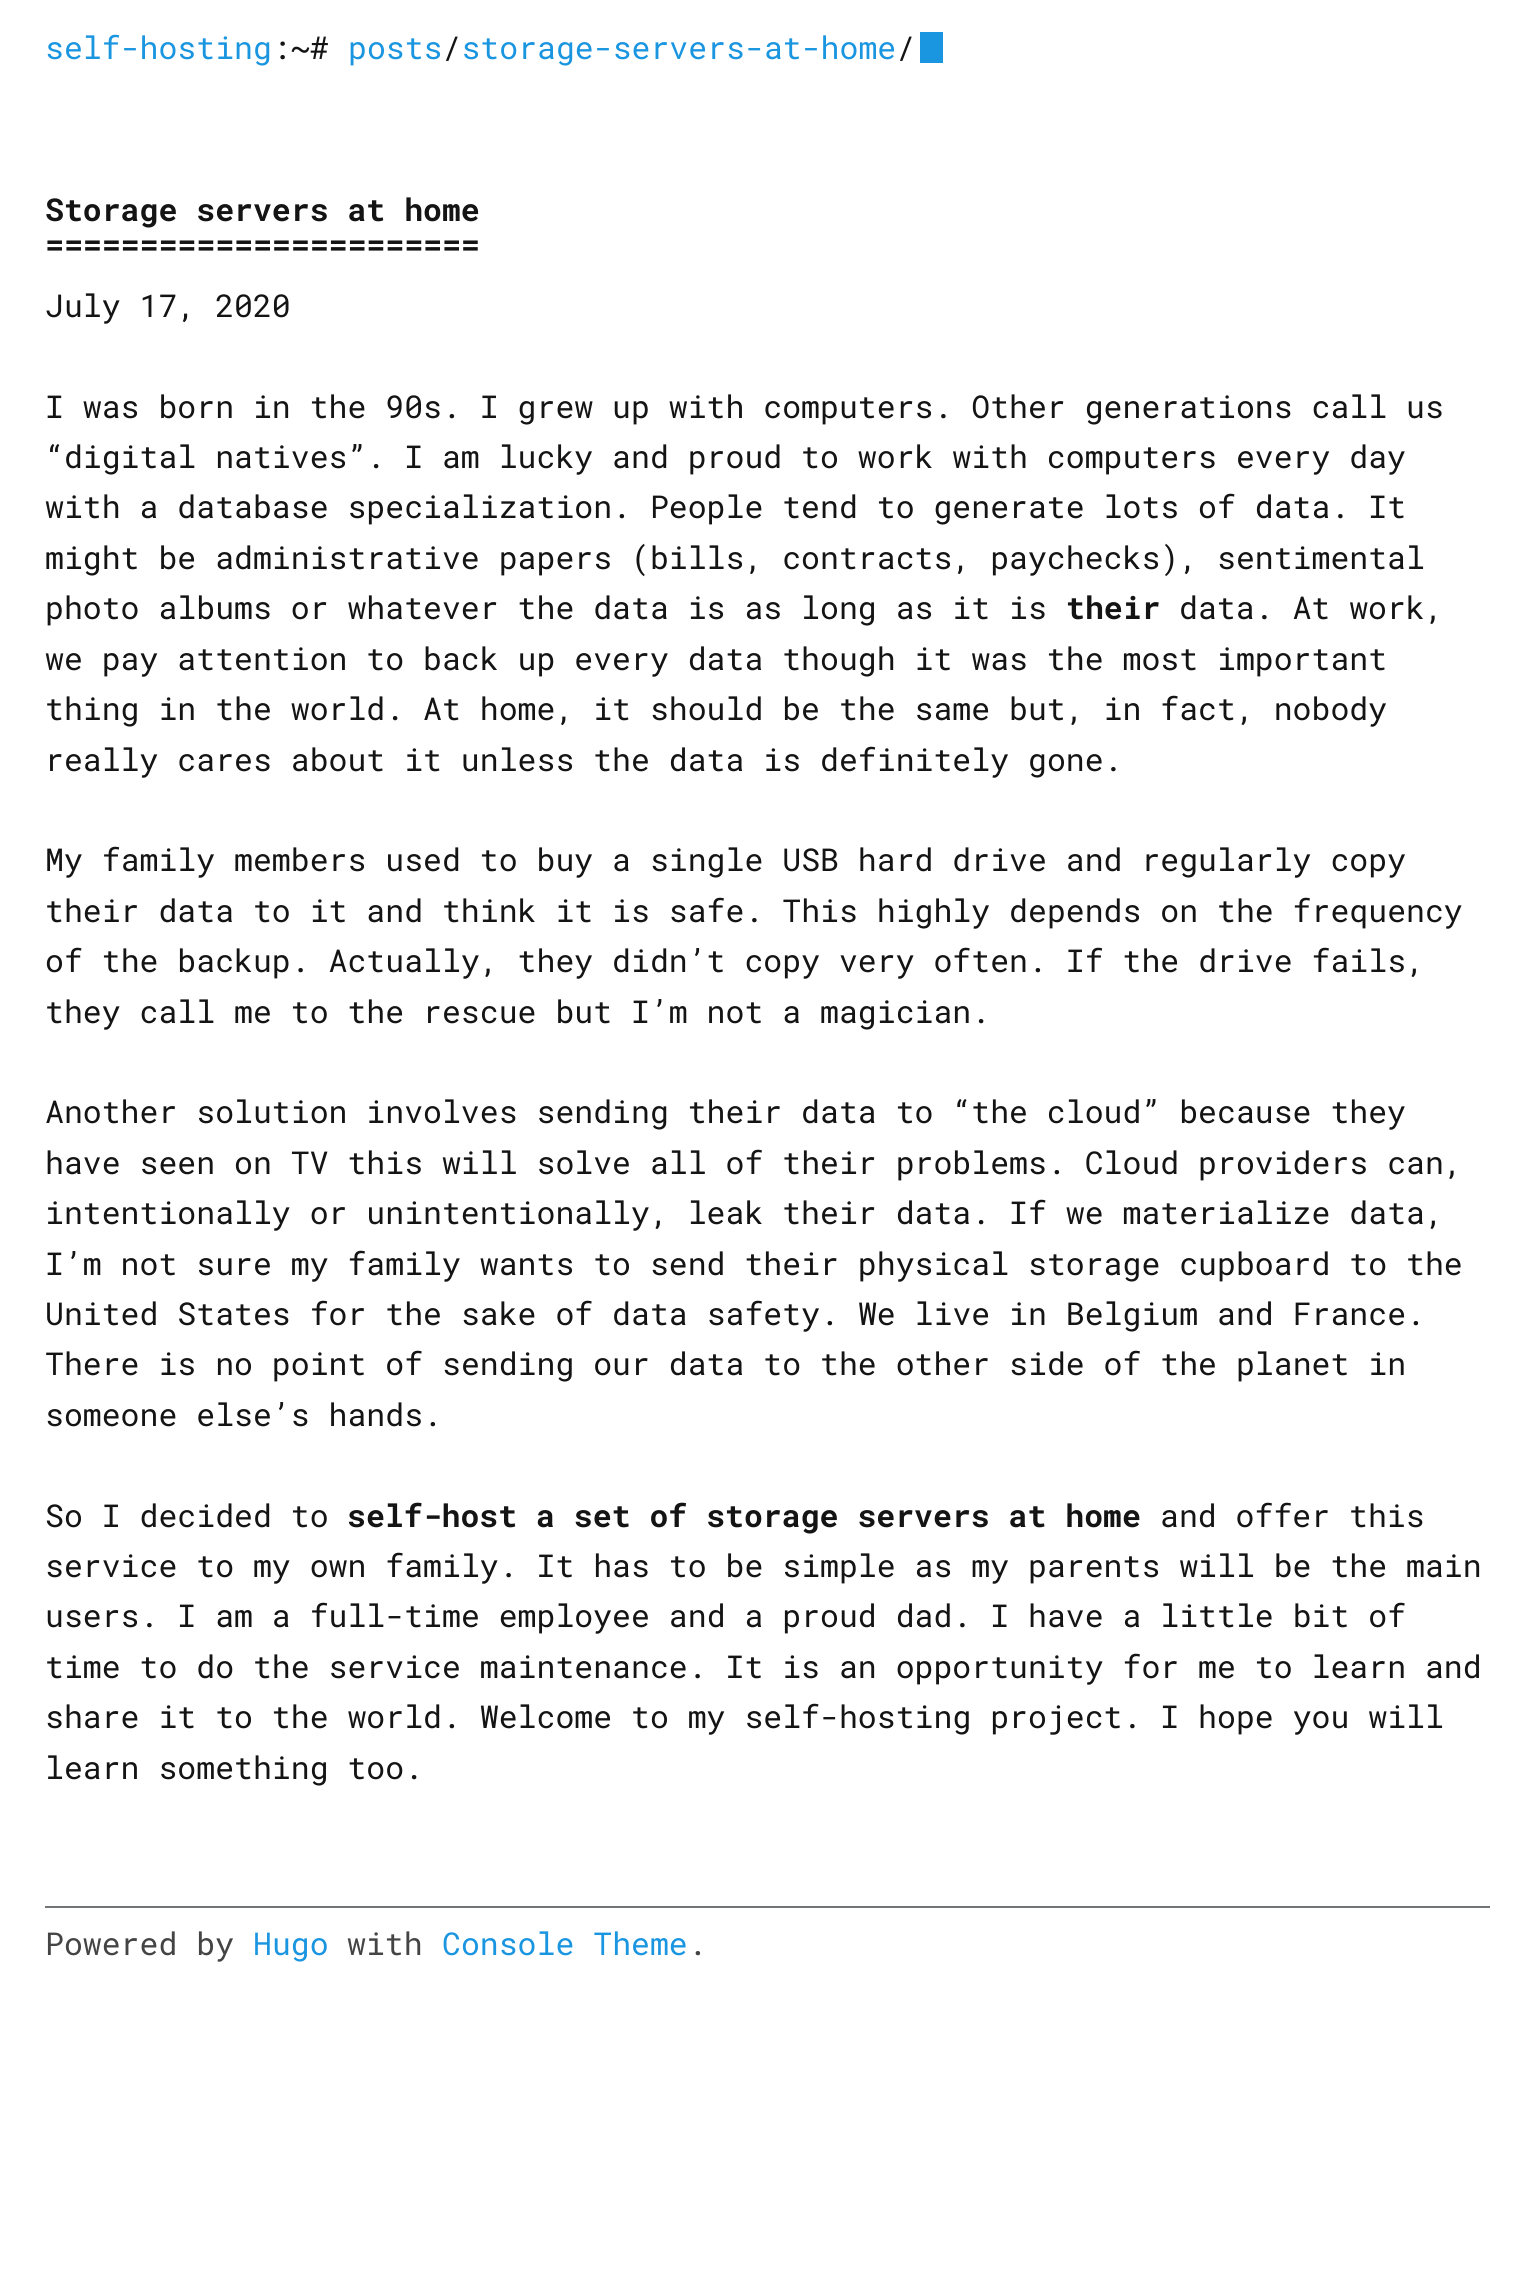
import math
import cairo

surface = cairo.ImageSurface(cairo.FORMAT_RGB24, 1533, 2292)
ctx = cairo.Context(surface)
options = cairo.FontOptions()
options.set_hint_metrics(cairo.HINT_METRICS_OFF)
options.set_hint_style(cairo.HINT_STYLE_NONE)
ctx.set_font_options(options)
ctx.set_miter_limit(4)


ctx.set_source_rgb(1, 1, 1)
ctx.paint()
ctx.select_font_face("Roboto Mono")
ctx.set_font_size(31.5)
ctx.set_source_rgb(0.102, 0.584, 0.878)
ctx.move_to(45, 59)
ctx.show_text("self-hosting")
ctx.set_source_rgb(0.082, 0.082, 0.082)
ctx.move_to(272, 59)
ctx.show_text(":~#")
ctx.set_source_rgb(0.102, 0.584, 0.878)
ctx.move_to(348, 59)
ctx.show_text("posts storage-servers-at-home")
ctx.rectangle(920, 32, 23, 31)
ctx.fill()
ctx.set_source_rgb(0.082, 0.082, 0.082)
ctx.move_to(442, 59)
ctx.show_text("/")
ctx.move_to(896, 59)
ctx.show_text("/")
ctx.select_font_face("Roboto Mono", cairo.FONT_SLANT_NORMAL, cairo.FONT_WEIGHT_BOLD)
ctx.move_to(45, 221)
ctx.show_text("Storage servers at home")
ctx.move_to(45, 255)
ctx.show_text("=======================")
ctx.select_font_face("Roboto Mono")
ctx.move_to(45, 317)
ctx.show_text("July 17, 2020")
ctx.move_to(45, 418)
ctx.show_text("I was born in the 90s. I grew up with computers. Other generations call us")
ctx.move_to(45, 468)
ctx.show_text("“digital natives”. I am lucky and proud to work with computers every day")
ctx.move_to(45, 518)
ctx.show_text("with a database specialization. People tend to generate lots of data. It")
ctx.move_to(45, 569)
ctx.show_text("might be administrative papers (bills, contracts, paychecks), sentimental")
ctx.move_to(45, 619)
ctx.show_text("photo albums or whatever the data is as long as it is")
ctx.select_font_face("Roboto Mono", cairo.FONT_SLANT_NORMAL, cairo.FONT_WEIGHT_BOLD)
ctx.move_to(1066, 619)
ctx.show_text("their")
ctx.select_font_face("Roboto Mono")
ctx.move_to(1179, 619)
ctx.show_text("data. At work,")
ctx.move_to(45, 670)
ctx.show_text("we pay attention to back up every data though it was the most important")
ctx.move_to(45, 720)
ctx.show_text("thing in the world. At home, it should be the same but, in fact, nobody")
ctx.move_to(45, 771)
ctx.show_text("really cares about it unless the data is definitely gone.")
ctx.move_to(45, 871)
ctx.show_text("My family members used to buy a single USB hard drive and regularly copy")
ctx.move_to(45, 922)
ctx.show_text("their data to it and think it is safe. This highly depends on the frequency")
ctx.move_to(45, 972)
ctx.show_text("of the backup. Actually, they didn’t copy very often. If the drive fails,")
ctx.move_to(45, 1023)
ctx.show_text("they call me to the rescue but I’m not a magician.")
ctx.move_to(45, 1123)
ctx.show_text("Another solution involves sending their data to “the cloud” because they")
ctx.move_to(45, 1174)
ctx.show_text("have seen on TV this will solve all of their problems. Cloud providers can,")
ctx.move_to(45, 1224)
ctx.show_text("intentionally or unintentionally, leak their data. If we materialize data,")
ctx.move_to(45, 1275)
ctx.show_text("I’m not sure my family wants to send their physical storage cupboard to the")
ctx.move_to(45, 1325)
ctx.show_text("United States for the sake of data safety. We live in Belgium and France.")
ctx.move_to(45, 1375)
ctx.show_text("There is no point of sending our data to the other side of the planet in")
ctx.move_to(45, 1426)
ctx.show_text("someone else’s hands.")
ctx.move_to(45, 1527)
ctx.show_text("So I decided to")
ctx.select_font_face("Roboto Mono", cairo.FONT_SLANT_NORMAL, cairo.FONT_WEIGHT_BOLD)
ctx.move_to(347, 1527)
ctx.show_text("self-host a set of storage servers at home")
ctx.select_font_face("Roboto Mono")
ctx.move_to(1160, 1527)
ctx.show_text("and offer this")
ctx.move_to(45, 1577)
ctx.show_text("service to my own family. It has to be simple as my parents will be the main")
ctx.move_to(45, 1627)
ctx.show_text("users. I am a full-time employee and a proud dad. I have a little bit of")
ctx.move_to(45, 1678)
ctx.show_text("time to do the service maintenance. It is an opportunity for me to learn and")
ctx.move_to(45, 1728)
ctx.show_text("share it to the world. Welcome to my self-hosting project. I hope you will")
ctx.move_to(45, 1779)
ctx.show_text("learn something too.")
ctx.set_source_rgb(0.447, 0.459, 0.471)
ctx.rectangle(45, 1906, 1445, 2)
ctx.fill()
ctx.set_source_rgb(0.267, 0.267, 0.267)
ctx.move_to(45, 1955)
ctx.show_text("Powered by")
ctx.set_source_rgb(0.102, 0.584, 0.878)
ctx.move_to(253, 1955)
ctx.show_text("Hugo")
ctx.set_source_rgb(0.267, 0.267, 0.267)
ctx.move_to(347, 1955)
ctx.show_text("with")
ctx.set_source_rgb(0.102, 0.584, 0.878)
ctx.move_to(442, 1955)
ctx.show_text("Console Theme")
ctx.set_source_rgb(0.267, 0.267, 0.267)
ctx.move_to(688, 1955)
ctx.show_text(".")
surface.write_to_png("page.png")
